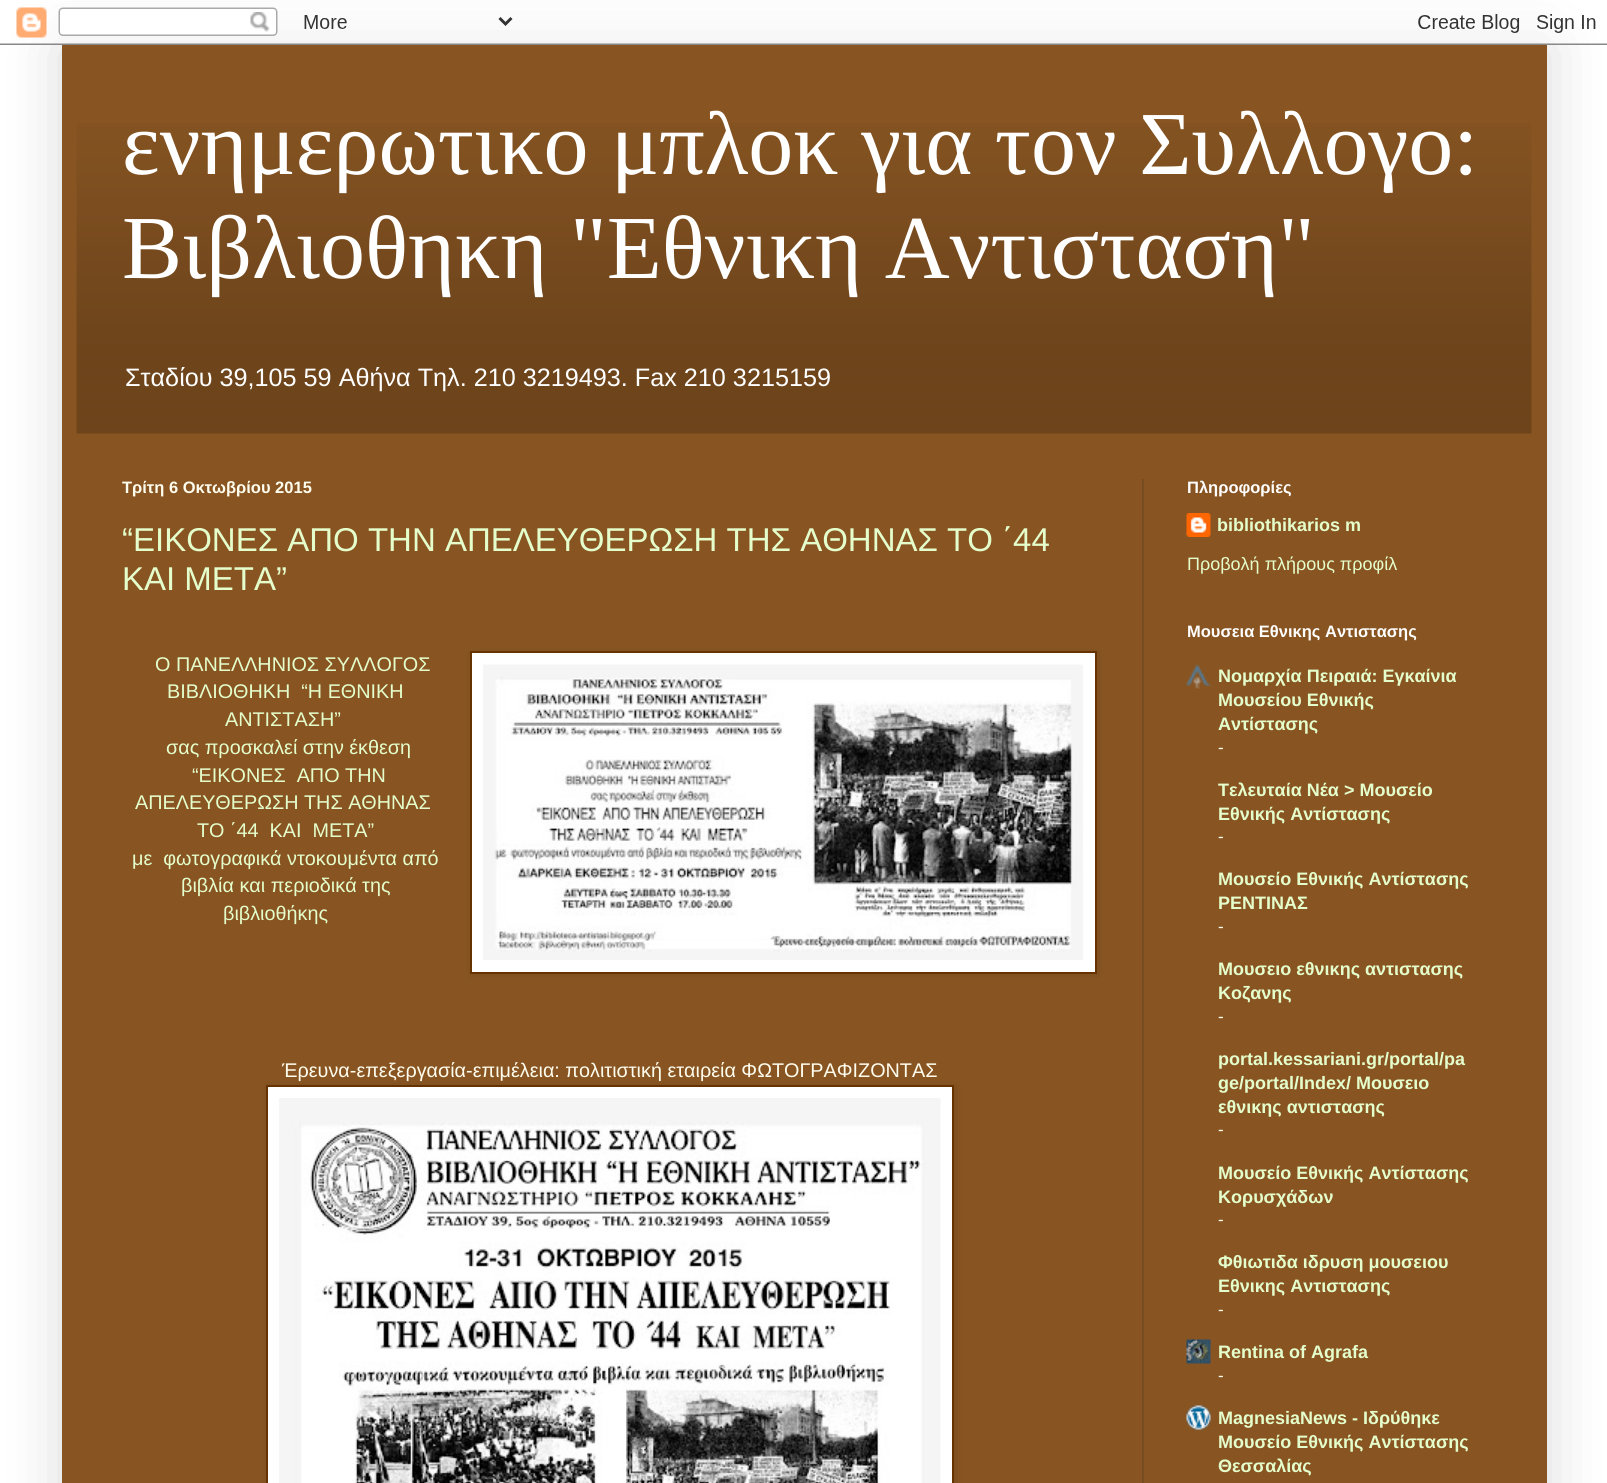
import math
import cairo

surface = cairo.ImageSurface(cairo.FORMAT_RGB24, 1607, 1483)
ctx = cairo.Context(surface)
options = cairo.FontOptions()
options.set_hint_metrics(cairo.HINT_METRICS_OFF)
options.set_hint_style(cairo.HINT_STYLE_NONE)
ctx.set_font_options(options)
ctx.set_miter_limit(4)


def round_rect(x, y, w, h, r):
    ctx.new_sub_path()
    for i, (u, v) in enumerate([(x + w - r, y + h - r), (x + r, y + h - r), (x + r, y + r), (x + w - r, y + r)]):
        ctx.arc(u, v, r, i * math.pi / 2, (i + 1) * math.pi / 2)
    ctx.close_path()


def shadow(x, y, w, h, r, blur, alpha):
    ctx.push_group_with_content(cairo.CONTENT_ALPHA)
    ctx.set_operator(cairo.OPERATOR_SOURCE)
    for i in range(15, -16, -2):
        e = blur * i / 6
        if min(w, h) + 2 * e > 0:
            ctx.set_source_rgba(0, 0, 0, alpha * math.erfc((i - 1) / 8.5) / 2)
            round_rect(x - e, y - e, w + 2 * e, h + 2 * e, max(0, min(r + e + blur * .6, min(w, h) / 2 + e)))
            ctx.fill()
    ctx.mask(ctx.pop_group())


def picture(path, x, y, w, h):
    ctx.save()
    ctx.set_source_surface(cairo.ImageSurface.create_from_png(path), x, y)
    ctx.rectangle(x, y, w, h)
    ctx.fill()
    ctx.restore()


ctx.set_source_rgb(1, 1, 1)
ctx.paint()
ctx.set_source_rgb(0, 0, 0)
shadow(62, 45, 1485, 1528, 0, 30, 0.15)
picture("img1.png", 0, 7, 1607, 38)
ctx.set_source_rgb(0.533, 0.333, 0.133)
ctx.rectangle(62, 45, 1485, 1438)
ctx.fill()
picture("img2.png", 76, 123, 1456, 311)
ctx.select_font_face("Liberation Serif")
ctx.set_font_size(90)
ctx.set_source_rgb(1, 1, 1)
ctx.move_to(122, 174)
ctx.show_text("ενημερωτικο μπλοκ για τον Συλλογο:")
ctx.move_to(122, 278)
ctx.show_text("Βιβλιοθηκη \"Eθνικη Aντισταση\"")
ctx.select_font_face("Liberation Sans")
ctx.set_font_size(25.2)
ctx.move_to(125, 386)
ctx.show_text("Σταδίου 39,105 59 Αθήνα Τηλ. 210 3219493. Fax 210 3215159")
ctx.set_source_rgb(0.463, 0.298, 0.129)
ctx.rectangle(1142, 479, 2, 1004)
ctx.fill()
ctx.select_font_face("Liberation Sans", cairo.FONT_SLANT_NORMAL, cairo.FONT_WEIGHT_BOLD)
ctx.set_font_size(16.5)
ctx.set_source_rgb(1, 0.992, 0.933)
ctx.move_to(122, 493)
ctx.show_text("Τρίτη 6 Οκτωβρίου 2015")
ctx.select_font_face("Liberation Sans")
ctx.set_font_size(33)
ctx.set_source_rgb(0.898, 1, 0.8)
ctx.move_to(122, 551)
ctx.show_text("“ΕΙΚΟΝΕΣ ΑΠΟ ΤΗΝ ΑΠΕΛΕΥΘΕΡΩΣΗ ΤΗΣ ΑΘΗΝΑΣ ΤΟ ΄44")
ctx.move_to(122, 590)
ctx.show_text("ΚΑΙ ΜΕΤΑ”")
ctx.set_font_size(19.8)
ctx.move_to(155, 671)
ctx.show_text("Ο ΠΑΝΕΛΛΗΝΙΟΣ ΣΥΛΛΟΓΟΣ")
ctx.set_source_rgb(0, 0, 0)
shadow(471, 653, 627, 322, 0, 4, 0.1)
ctx.set_source_rgb(1, 1, 1)
ctx.rectangle(471, 652, 625, 321)
ctx.fill_preserve()
ctx.set_source_rgb(0.4, 0.2, 0)
ctx.stroke()
picture("img3.png", 483, 664, 600, 296)
ctx.set_source_rgb(0.898, 1, 0.8)
ctx.move_to(167, 698)
ctx.show_text("ΒΙΒΛΙΟΘΗΚΗ  “Η ΕΘΝΙΚΗ")
ctx.move_to(225, 726)
ctx.show_text("ΑΝΤΙΣΤΑΣΗ”")
ctx.move_to(166, 754)
ctx.show_text("σας προσκαλεί στην έκθεση")
ctx.move_to(192, 782)
ctx.show_text("“ΕΙΚΟΝΕΣ  ΑΠΟ ΤΗΝ")
ctx.move_to(135, 809)
ctx.show_text("ΑΠΕΛΕΥΘΕΡΩΣΗ ΤΗΣ ΑΘΗΝΑΣ")
ctx.move_to(197, 837)
ctx.show_text("ΤΟ ΄44  ΚΑΙ  ΜΕΤΑ”")
ctx.move_to(132, 865)
ctx.show_text("με  φωτογραφικά ντοκουμέντα από")
ctx.move_to(181, 892)
ctx.show_text("βιβλία και περιοδικά της")
ctx.move_to(223, 920)
ctx.show_text("βιβλιοθήκης")
ctx.set_source_rgb(1, 0.992, 0.933)
ctx.move_to(282, 1077)
ctx.show_text("Έρευνα-επεξεργασία-επιμέλεια: πολιτιστική εταιρεία ΦΩΤΟΓΡΑΦΙΖΟΝΤΑΣ")
ctx.set_source_rgb(0, 0, 0)
shadow(267, 1086, 689, 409, 0, 4, 0.1)
ctx.set_source_rgb(1, 1, 1)
ctx.rectangle(267, 1086, 686, 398)
ctx.fill_preserve()
ctx.set_source_rgb(0.4, 0.2, 0)
ctx.stroke()
picture("img4.png", 279, 1098, 662, 385)
ctx.select_font_face("Liberation Sans", cairo.FONT_SLANT_NORMAL, cairo.FONT_WEIGHT_BOLD)
ctx.set_font_size(16.5)
ctx.set_source_rgb(1, 1, 1)
ctx.move_to(1187, 493)
ctx.show_text("Πληροφορίες")
picture("img5.png", 1186, 513, 25, 24)
ctx.set_font_size(18)
ctx.set_source_rgb(0.898, 1, 0.8)
ctx.move_to(1217, 531)
ctx.show_text("bibliothikarios m")
ctx.select_font_face("Liberation Sans")
ctx.move_to(1187, 570)
ctx.show_text("Προβολή πλήρους προφίλ")
ctx.select_font_face("Liberation Sans", cairo.FONT_SLANT_NORMAL, cairo.FONT_WEIGHT_BOLD)
ctx.set_font_size(16.5)
ctx.set_source_rgb(1, 1, 1)
ctx.move_to(1187, 637)
ctx.show_text("Μουσεια Εθνικης Αντιστασης")
picture("img6.png", 1186, 664, 25, 25)
ctx.set_font_size(18)
ctx.set_source_rgb(0.898, 1, 0.8)
ctx.move_to(1218, 682)
ctx.show_text("Νομαρχία Πειραιά: Εγκαίνια")
ctx.move_to(1218, 706)
ctx.show_text("Μουσείου Εθνικής")
ctx.move_to(1218, 730)
ctx.show_text("Αντίστασης")
ctx.select_font_face("Liberation Sans")
ctx.set_font_size(17)
ctx.set_source_rgb(1, 0.992, 0.933)
ctx.move_to(1218, 753)
ctx.show_text("-")
ctx.select_font_face("Liberation Sans", cairo.FONT_SLANT_NORMAL, cairo.FONT_WEIGHT_BOLD)
ctx.set_font_size(18)
ctx.set_source_rgb(0.898, 1, 0.8)
ctx.move_to(1218, 796)
ctx.show_text("Τελευταία Νέα > Μουσείο")
ctx.move_to(1218, 820)
ctx.show_text("Εθνικής Αντίστασης")
ctx.select_font_face("Liberation Sans")
ctx.set_font_size(17)
ctx.set_source_rgb(1, 0.992, 0.933)
ctx.move_to(1218, 842)
ctx.show_text("-")
ctx.select_font_face("Liberation Sans", cairo.FONT_SLANT_NORMAL, cairo.FONT_WEIGHT_BOLD)
ctx.set_font_size(18)
ctx.set_source_rgb(0.898, 1, 0.8)
ctx.move_to(1218, 885)
ctx.show_text("Μουσείο Εθνικής Αντίστασης")
ctx.move_to(1218, 909)
ctx.show_text("ΡΕΝΤΙΝΑΣ")
ctx.select_font_face("Liberation Sans")
ctx.set_font_size(17)
ctx.set_source_rgb(1, 0.992, 0.933)
ctx.move_to(1218, 932)
ctx.show_text("-")
ctx.select_font_face("Liberation Sans", cairo.FONT_SLANT_NORMAL, cairo.FONT_WEIGHT_BOLD)
ctx.set_font_size(18)
ctx.set_source_rgb(0.898, 1, 0.8)
ctx.move_to(1218, 975)
ctx.show_text("Μουσειο εθνικης αντιστασης")
ctx.move_to(1218, 999)
ctx.show_text("Κοζανης")
ctx.select_font_face("Liberation Sans")
ctx.set_font_size(17)
ctx.set_source_rgb(1, 0.992, 0.933)
ctx.move_to(1218, 1022)
ctx.show_text("-")
ctx.select_font_face("Liberation Sans", cairo.FONT_SLANT_NORMAL, cairo.FONT_WEIGHT_BOLD)
ctx.set_font_size(18)
ctx.set_source_rgb(0.898, 1, 0.8)
ctx.move_to(1218, 1065)
ctx.show_text("portal.kessariani.gr/portal/pa")
ctx.move_to(1218, 1089)
ctx.show_text("ge/portal/Index/ Μουσειο")
ctx.move_to(1218, 1113)
ctx.show_text("εθνικης αντιστασης")
ctx.select_font_face("Liberation Sans")
ctx.set_font_size(17)
ctx.set_source_rgb(1, 0.992, 0.933)
ctx.move_to(1218, 1135)
ctx.show_text("-")
ctx.select_font_face("Liberation Sans", cairo.FONT_SLANT_NORMAL, cairo.FONT_WEIGHT_BOLD)
ctx.set_font_size(18)
ctx.set_source_rgb(0.898, 1, 0.8)
ctx.move_to(1218, 1179)
ctx.show_text("Μουσείο Εθνικής Αντίστασης")
ctx.move_to(1218, 1203)
ctx.show_text("Κορυσχάδων")
ctx.select_font_face("Liberation Sans")
ctx.set_font_size(17)
ctx.set_source_rgb(1, 0.992, 0.933)
ctx.move_to(1218, 1225)
ctx.show_text("-")
ctx.select_font_face("Liberation Sans", cairo.FONT_SLANT_NORMAL, cairo.FONT_WEIGHT_BOLD)
ctx.set_font_size(18)
ctx.set_source_rgb(0.898, 1, 0.8)
ctx.move_to(1218, 1268)
ctx.show_text("Φθιωτιδα ιδρυση μουσειου")
ctx.move_to(1218, 1292)
ctx.show_text("Εθνικης Αντιστασης")
ctx.select_font_face("Liberation Sans")
ctx.set_font_size(17)
ctx.set_source_rgb(1, 0.992, 0.933)
ctx.move_to(1218, 1315)
ctx.show_text("-")
picture("img7.png", 1186, 1339, 25, 25)
ctx.select_font_face("Liberation Sans", cairo.FONT_SLANT_NORMAL, cairo.FONT_WEIGHT_BOLD)
ctx.set_font_size(18)
ctx.set_source_rgb(0.898, 1, 0.8)
ctx.move_to(1218, 1358)
ctx.show_text("Rentina of Agrafa")
ctx.select_font_face("Liberation Sans")
ctx.set_font_size(17)
ctx.set_source_rgb(1, 0.992, 0.933)
ctx.move_to(1218, 1381)
ctx.show_text("-")
picture("img8.png", 1186, 1405, 25, 25)
ctx.select_font_face("Liberation Sans", cairo.FONT_SLANT_NORMAL, cairo.FONT_WEIGHT_BOLD)
ctx.set_font_size(18)
ctx.set_source_rgb(0.898, 1, 0.8)
ctx.move_to(1218, 1424)
ctx.show_text("MagnesiaNews - Ιδρύθηκε")
ctx.move_to(1218, 1448)
ctx.show_text("Μουσείο Εθνικής Αντίστασης")
ctx.move_to(1218, 1472)
ctx.show_text("Θεσσαλίας")
surface.write_to_png("page.png")
